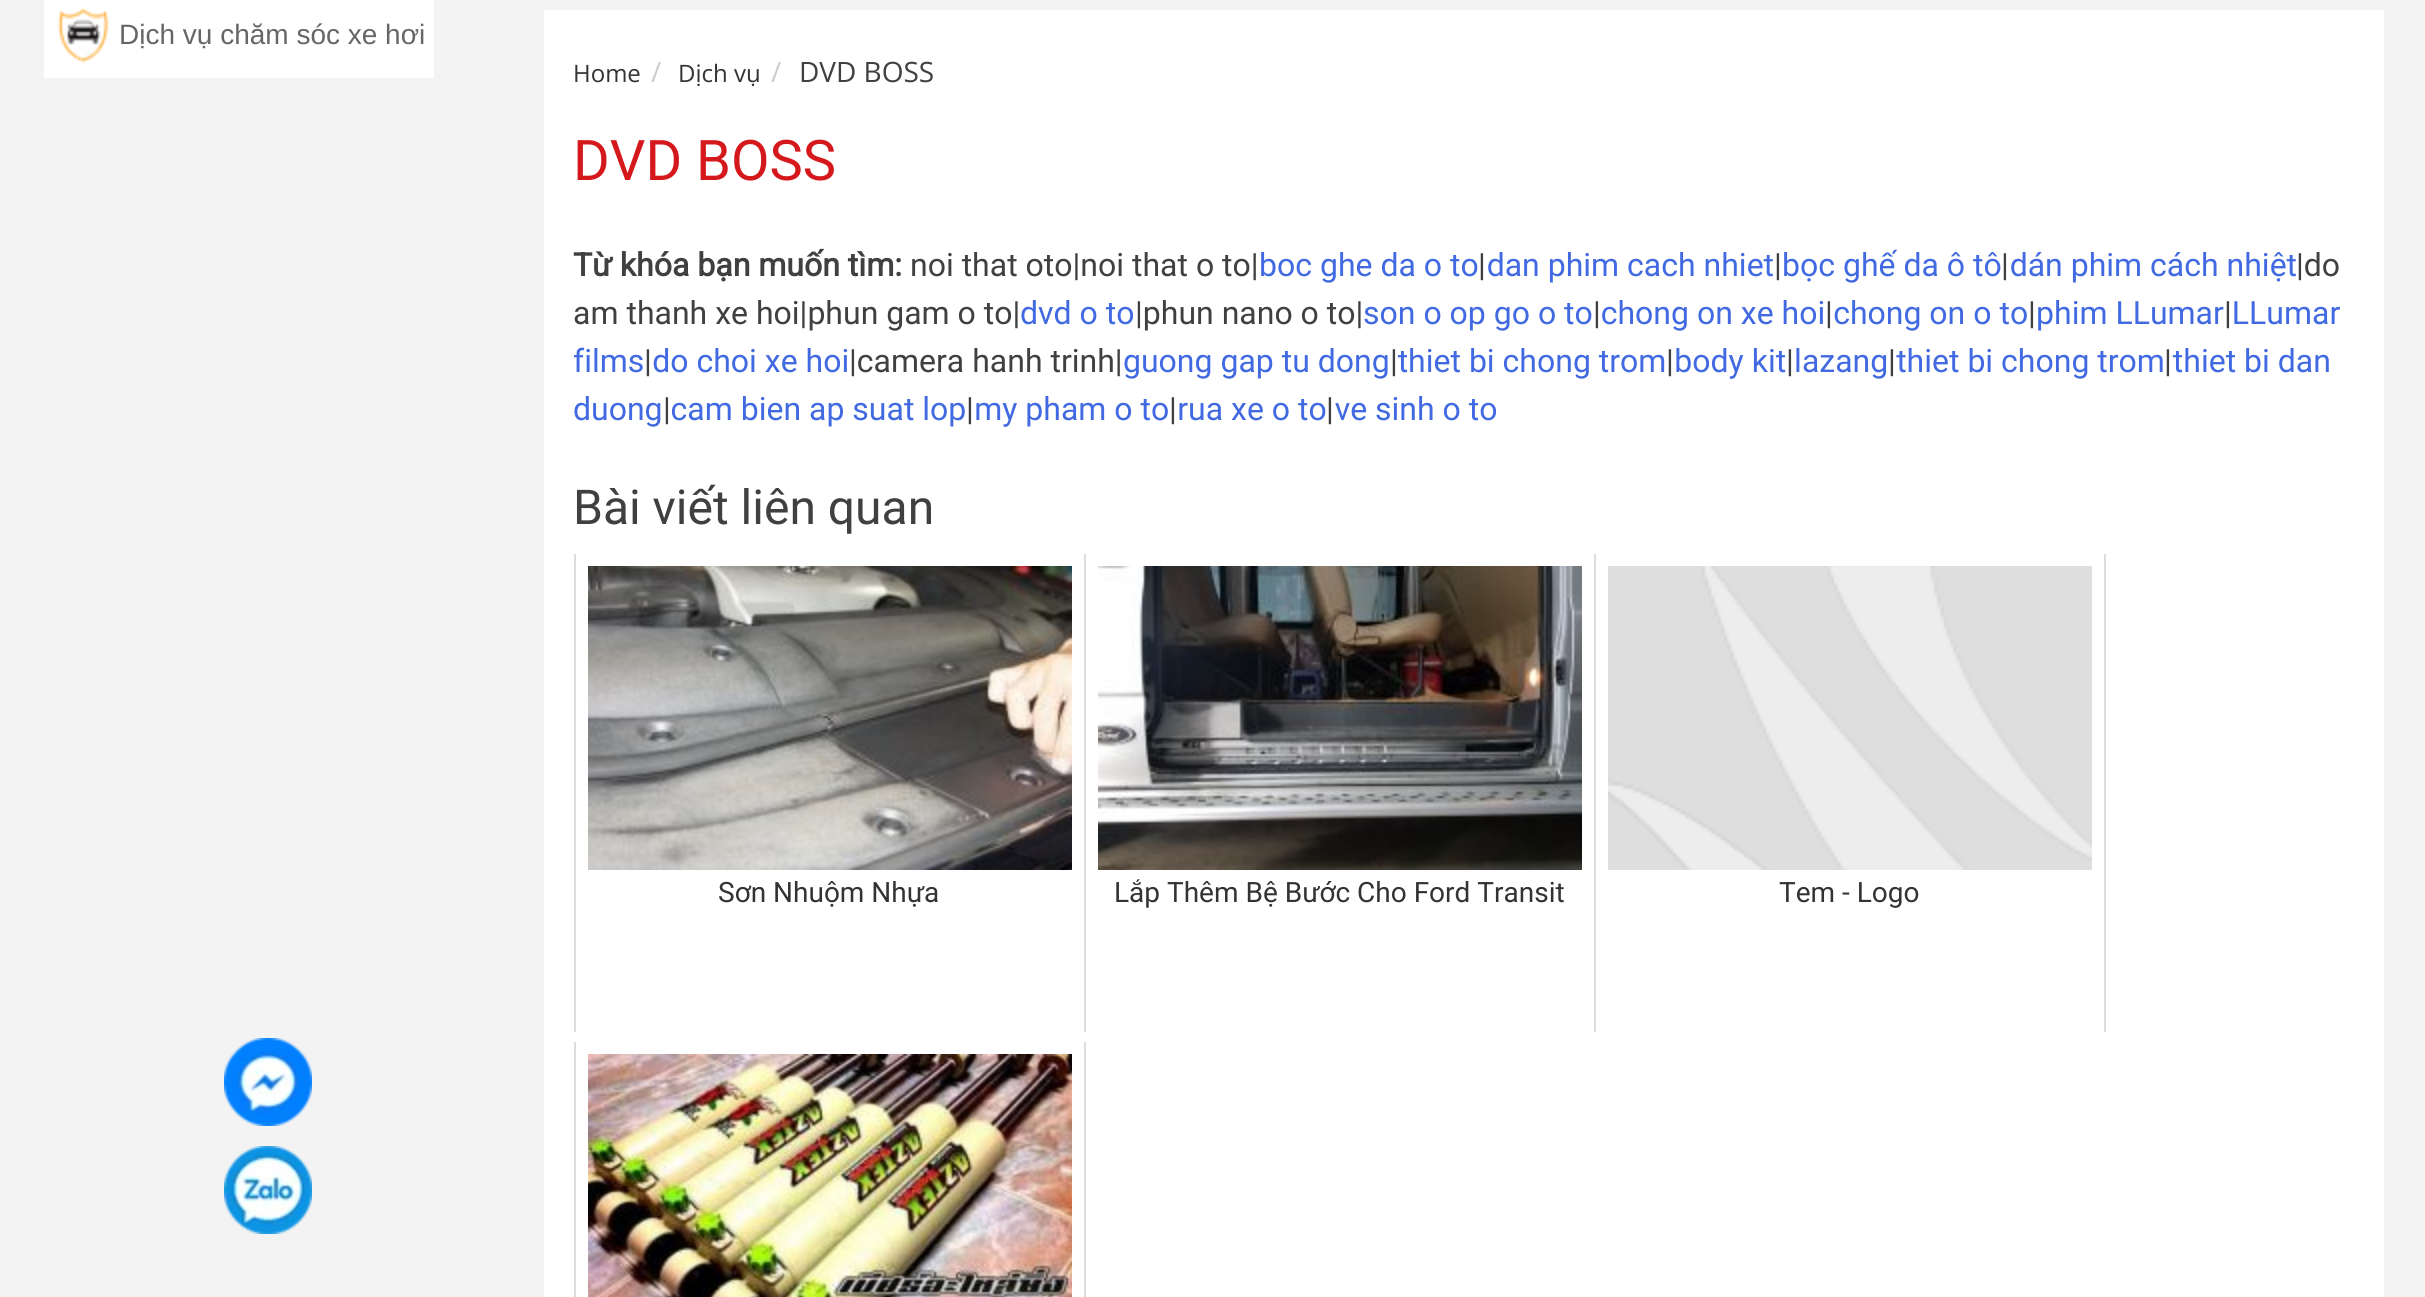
import math
import cairo

surface = cairo.ImageSurface(cairo.FORMAT_RGB24, 2425, 1297)
ctx = cairo.Context(surface)
options = cairo.FontOptions()
options.set_hint_metrics(cairo.HINT_METRICS_OFF)
options.set_hint_style(cairo.HINT_STYLE_NONE)
ctx.set_font_options(options)
ctx.set_miter_limit(4)


def picture(path, x, y, w, h):
    ctx.save()
    ctx.set_source_surface(cairo.ImageSurface.create_from_png(path), x, y)
    ctx.rectangle(x, y, w, h)
    ctx.fill()
    ctx.restore()


ctx.set_source_rgb(0.953, 0.953, 0.953)
ctx.paint()
ctx.set_source_rgb(1, 1, 1)
ctx.rectangle(44, 0, 390, 78)
ctx.fill()
picture("img1.png", 57, 7, 52, 56)
ctx.select_font_face("Liberation Sans")
ctx.set_font_size(28)
ctx.set_source_rgb(0.4, 0.4, 0.4)
ctx.move_to(119, 44)
ctx.show_text("Dịch vụ chăm sóc xe hơi")
ctx.set_source_rgb(1, 1, 1)
ctx.rectangle(544, 10, 1840, 1287)
ctx.fill()
ctx.select_font_face("Open Sans")
ctx.set_font_size(24)
ctx.set_source_rgb(0.2, 0.2, 0.2)
ctx.move_to(573, 82)
ctx.show_text("Home")
ctx.set_font_size(28)
ctx.set_source_rgb(0.8, 0.8, 0.8)
ctx.move_to(651, 82)
ctx.show_text("/")
ctx.set_font_size(24)
ctx.set_source_rgb(0.2, 0.2, 0.2)
ctx.move_to(678, 82)
ctx.show_text("Dịch vụ")
ctx.set_font_size(28)
ctx.set_source_rgb(0.8, 0.8, 0.8)
ctx.move_to(771, 82)
ctx.show_text("/")
ctx.set_source_rgb(0.251, 0.251, 0.251)
ctx.move_to(799, 82)
ctx.show_text("DVD BOSS")
ctx.select_font_face("Roboto")
ctx.set_font_size(56)
ctx.set_source_rgb(0.835, 0.094, 0.11)
ctx.move_to(573, 180)
ctx.show_text("DVD BOSS")
ctx.select_font_face("Roboto", cairo.FONT_SLANT_NORMAL, cairo.FONT_WEIGHT_BOLD)
ctx.set_font_size(32)
ctx.set_source_rgb(0.251, 0.251, 0.251)
ctx.move_to(573, 276)
ctx.show_text("Từ khóa bạn muốn tìm:")
ctx.select_font_face("Roboto")
ctx.move_to(910, 276)
ctx.show_text("noi that oto|noi that o to|")
ctx.set_source_rgb(0.255, 0.412, 0.882)
ctx.move_to(1259, 276)
ctx.show_text("boc ghe da o to dan phim cach nhiet bọc ghế da ô tô dán phim cách nhiệt")
ctx.set_source_rgb(0.251, 0.251, 0.251)
ctx.move_to(2296, 276)
ctx.show_text("|do")
ctx.move_to(1478, 276)
ctx.show_text("|")
ctx.move_to(1774, 276)
ctx.show_text("|")
ctx.move_to(2001, 276)
ctx.show_text("|")
ctx.move_to(573, 324)
ctx.show_text("am thanh xe hoi|phun gam o to|")
ctx.set_source_rgb(0.255, 0.412, 0.882)
ctx.move_to(1020, 324)
ctx.show_text("dvd o to")
ctx.set_source_rgb(0.251, 0.251, 0.251)
ctx.move_to(1135, 324)
ctx.show_text("|phun nano o to|")
ctx.set_source_rgb(0.255, 0.412, 0.882)
ctx.move_to(1363, 324)
ctx.show_text("son o op go o to chong on xe hoi chong on o to phim LLumar LLumar")
ctx.set_source_rgb(0.251, 0.251, 0.251)
ctx.move_to(1593, 324)
ctx.show_text("|")
ctx.move_to(1825, 324)
ctx.show_text("|")
ctx.move_to(2028, 324)
ctx.show_text("|")
ctx.move_to(2224, 324)
ctx.show_text("|")
ctx.set_source_rgb(0.255, 0.412, 0.882)
ctx.move_to(573, 372)
ctx.show_text("films do choi xe hoi")
ctx.set_source_rgb(0.251, 0.251, 0.251)
ctx.move_to(849, 372)
ctx.show_text("|camera hanh trinh|")
ctx.set_source_rgb(0.255, 0.412, 0.882)
ctx.move_to(1123, 372)
ctx.show_text("guong gap tu dong thiet bi chong trom body kit lazang thiet bi chong trom thiet bi dan")
ctx.set_source_rgb(0.251, 0.251, 0.251)
ctx.move_to(644, 372)
ctx.show_text("|")
ctx.move_to(1390, 372)
ctx.show_text("|")
ctx.move_to(1666, 372)
ctx.show_text("|")
ctx.move_to(1786, 372)
ctx.show_text("|")
ctx.move_to(1888, 372)
ctx.show_text("|")
ctx.move_to(2164, 372)
ctx.show_text("|")
ctx.set_source_rgb(0.255, 0.412, 0.882)
ctx.move_to(573, 420)
ctx.show_text("duong cam bien ap suat lop my pham o to rua xe o to ve sinh o to")
ctx.set_source_rgb(0.251, 0.251, 0.251)
ctx.move_to(663, 420)
ctx.show_text("|")
ctx.move_to(966, 420)
ctx.show_text("|")
ctx.move_to(1169, 420)
ctx.show_text("|")
ctx.move_to(1326, 420)
ctx.show_text("|")
ctx.set_font_size(48)
ctx.move_to(573, 524)
ctx.show_text("Bài viết liên quan")
ctx.set_source_rgb(0.867, 0.867, 0.867)
ctx.rectangle(574, 554, 2, 478)
ctx.fill()
picture("img2.png", 588, 566, 484, 304)
ctx.set_font_size(28)
ctx.set_source_rgb(0.2, 0.2, 0.2)
ctx.move_to(718, 902)
ctx.show_text("Sơn Nhuộm Nhựa")
ctx.set_source_rgb(0.867, 0.867, 0.867)
ctx.rectangle(1084, 554, 2, 478)
ctx.fill()
picture("img3.png", 1098, 566, 484, 304)
ctx.set_source_rgb(0.2, 0.2, 0.2)
ctx.move_to(1114, 902)
ctx.show_text("Lắp Thêm Bệ Bước Cho Ford Transit")
ctx.set_source_rgb(0.867, 0.867, 0.867)
ctx.rectangle(2104, 554, 2, 478)
ctx.fill()
ctx.rectangle(1594, 554, 2, 478)
ctx.fill()
picture("img4.png", 1608, 566, 484, 304)
ctx.set_source_rgb(0.2, 0.2, 0.2)
ctx.move_to(1779, 902)
ctx.show_text("Tem - Logo")
ctx.set_source_rgb(0.867, 0.867, 0.867)
ctx.rectangle(1084, 1042, 2, 255)
ctx.fill()
ctx.rectangle(574, 1042, 2, 255)
ctx.fill()
picture("img5.png", 588, 1054, 484, 243)
picture("img6.png", 224, 1038, 88, 88)
picture("img7.png", 224, 1146, 88, 88)
surface.write_to_png("page.png")
